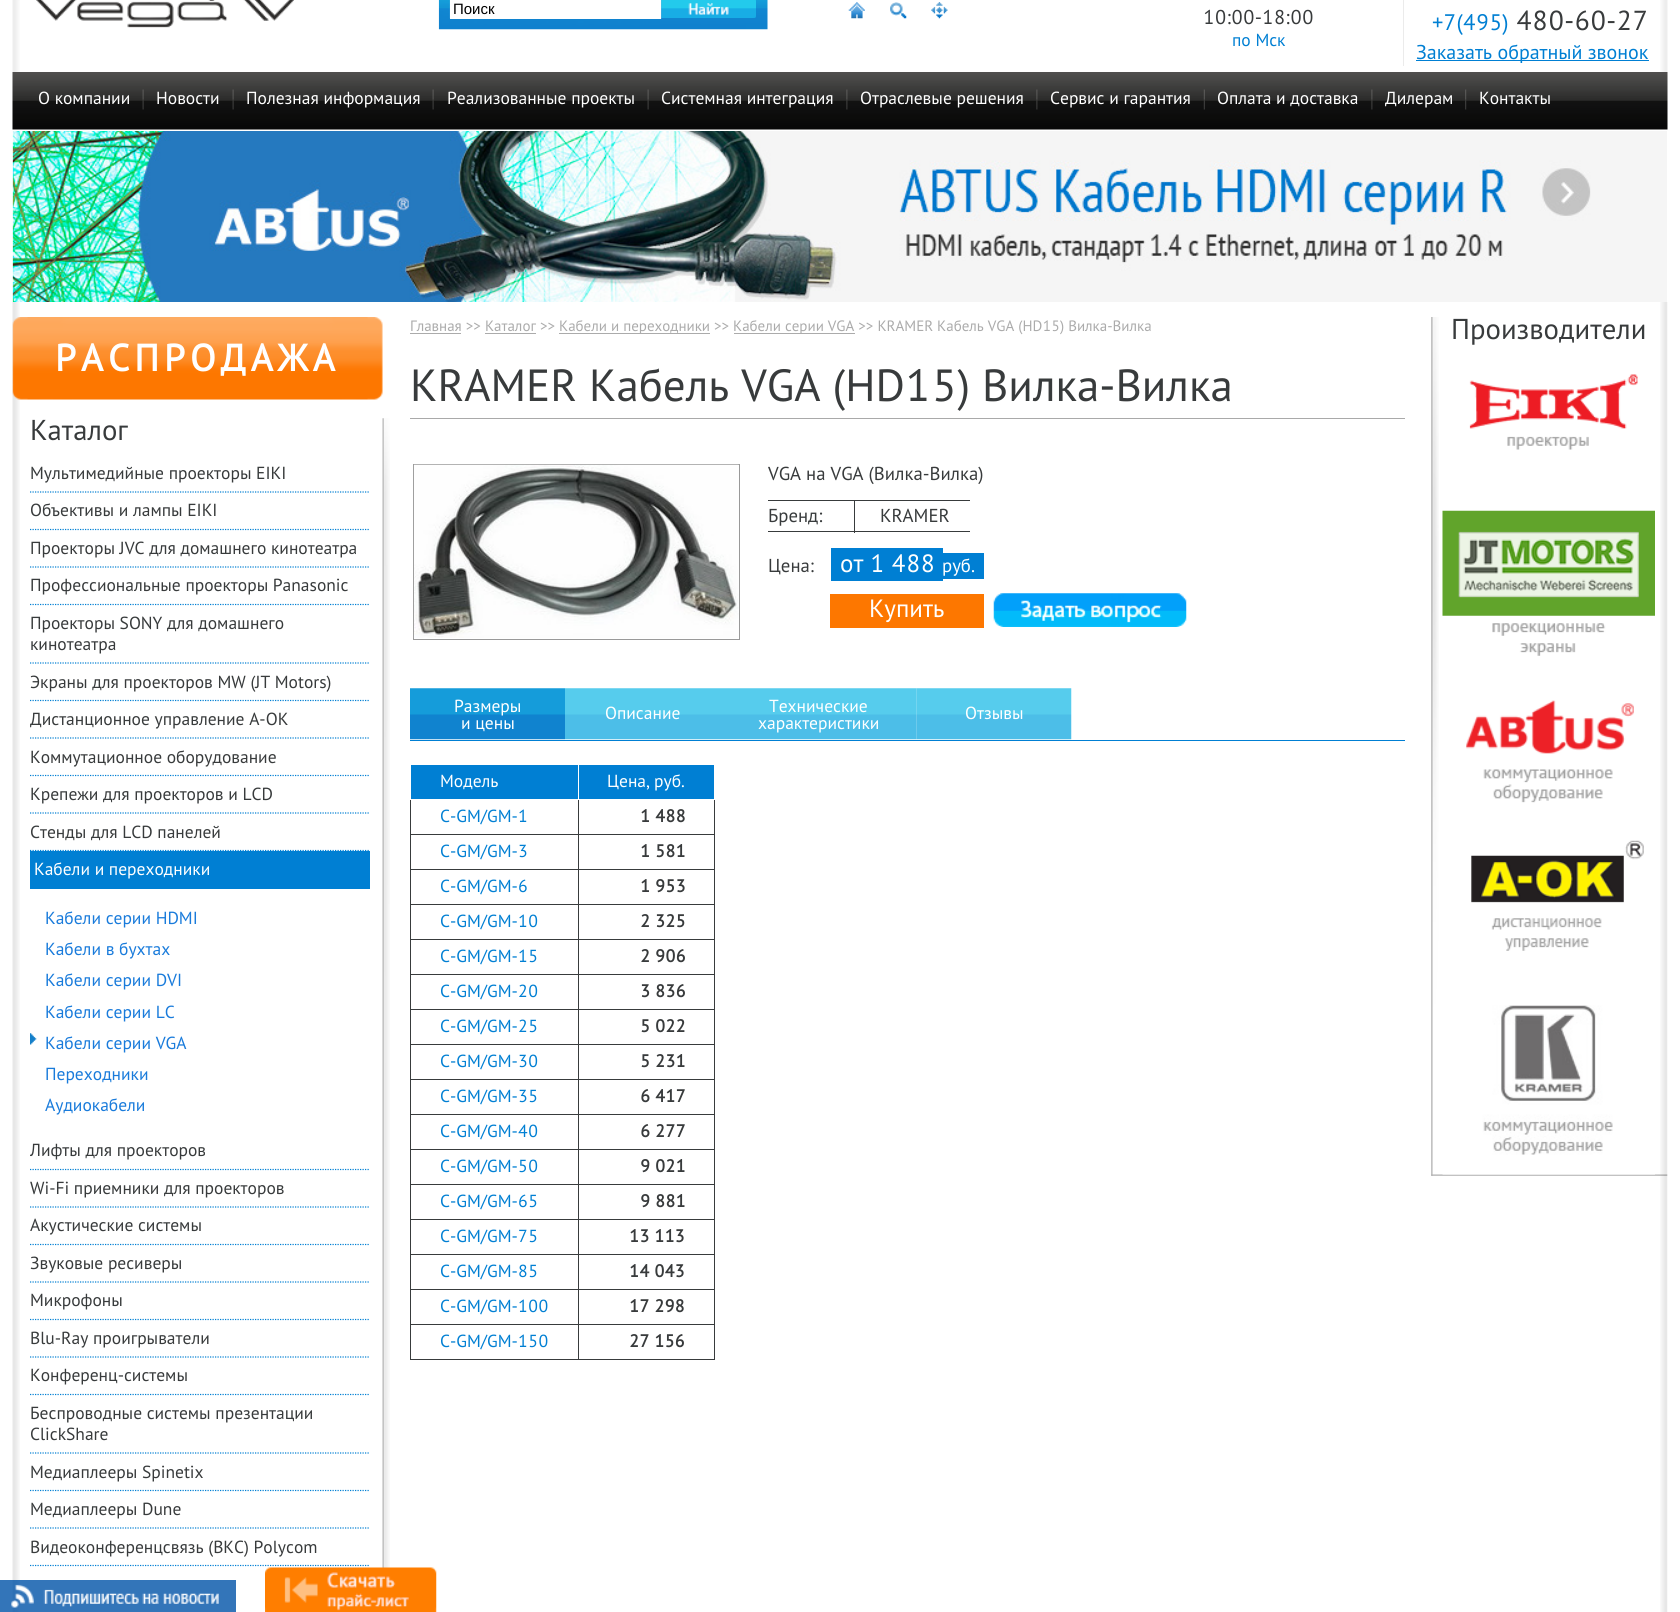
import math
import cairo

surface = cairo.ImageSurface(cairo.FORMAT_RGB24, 1680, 1612)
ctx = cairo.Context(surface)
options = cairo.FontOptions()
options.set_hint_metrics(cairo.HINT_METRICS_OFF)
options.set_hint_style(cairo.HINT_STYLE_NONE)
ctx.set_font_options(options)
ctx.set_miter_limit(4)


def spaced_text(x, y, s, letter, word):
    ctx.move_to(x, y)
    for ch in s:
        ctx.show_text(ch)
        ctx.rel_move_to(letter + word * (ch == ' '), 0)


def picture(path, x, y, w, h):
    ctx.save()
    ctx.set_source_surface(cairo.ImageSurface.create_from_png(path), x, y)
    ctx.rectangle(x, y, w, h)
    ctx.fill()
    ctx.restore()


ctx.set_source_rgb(1, 1, 1)
ctx.paint()
picture("img1.png", 12, 0, 8, 72)
picture("img2.png", 1660, 0, 8, 72)
picture("img3.png", 36, 0, 258, 28)
picture("img4.png", 438, 0, 330, 30)
ctx.set_source_rgb(1, 1, 1)
ctx.rectangle(450, 0, 211, 19)
ctx.fill()
ctx.select_font_face("Liberation Sans")
ctx.set_font_size(15)
ctx.set_source_rgb(0, 0, 0)
ctx.move_to(453, 14)
ctx.show_text("Поиск")
picture("img5.png", 661, 0, 95, 18)
picture("img6.png", 848, 2, 17, 17)
picture("img7.png", 890, 2, 17, 17)
picture("img8.png", 931, 2, 17, 17)
ctx.select_font_face("PT Sans")
ctx.set_font_size(20)
ctx.set_source_rgb(0.22, 0.231, 0.235)
ctx.move_to(1203, 24)
ctx.show_text("10:00-18:00")
ctx.set_font_size(17.5)
ctx.set_source_rgb(0, 0.498, 0.827)
ctx.move_to(1232, 46)
ctx.show_text("по Мск")
ctx.set_source_rgb(0.918, 0.918, 0.918)
ctx.rectangle(1403, 0, 1, 66)
ctx.fill()
ctx.set_font_size(22.5)
ctx.set_source_rgb(0, 0.498, 0.827)
ctx.move_to(1432, 30)
ctx.show_text("+7(495)")
ctx.set_font_size(27.5)
ctx.set_source_rgb(0.22, 0.231, 0.235)
ctx.move_to(1516, 30)
ctx.show_text("480-60-27")
ctx.set_source_rgb(0, 0.498, 0.827)
ctx.rectangle(1416, 60, 233, 1)
ctx.fill()
ctx.set_font_size(20)
ctx.move_to(1416, 59)
ctx.show_text("Заказать обратный звонок")
picture("img9.png", 12, 72, 1656, 58)
picture("img10.png", 142, 89, 2, 21)
ctx.set_font_size(17.5)
ctx.set_source_rgb(1, 1, 1)
ctx.move_to(38, 104)
ctx.show_text("О компании")
picture("img10.png", 232, 89, 2, 21)
ctx.move_to(156, 104)
ctx.show_text("Новости")
picture("img10.png", 432, 89, 2, 21)
ctx.move_to(246, 104)
ctx.show_text("Полезная информация")
picture("img10.png", 647, 89, 2, 21)
ctx.move_to(447, 104)
ctx.show_text("Реализованные проекты")
picture("img11.png", 846, 89, 2, 21)
ctx.move_to(661, 104)
ctx.show_text("Системная интеграция")
picture("img11.png", 1036, 89, 2, 21)
ctx.move_to(860, 104)
ctx.show_text("Отраслевые решения")
picture("img12.png", 1203, 89, 2, 21)
ctx.move_to(1050, 104)
ctx.show_text("Сервис и гарантия")
picture("img11.png", 1371, 89, 2, 21)
ctx.move_to(1217, 104)
ctx.show_text("Оплата и доставка")
picture("img13.png", 1465, 89, 2, 21)
ctx.move_to(1385, 104)
ctx.show_text("Дилерам")
ctx.move_to(1479, 104)
ctx.show_text("Контакты")
picture("img14.png", 12, 131, 1655, 171)
picture("img15.png", 12, 302, 8, 1310)
picture("img16.png", 1660, 302, 8, 1310)
picture("img17.png", 12, 317, 371, 83)
ctx.select_font_face("PT Sans", cairo.FONT_SLANT_NORMAL, cairo.FONT_WEIGHT_BOLD)
ctx.set_font_size(37.5)
spaced_text(55, 371, "РАСПРОДАЖА", 5, 0)
picture("img18.png", 382, 418, 8, 1150)
ctx.select_font_face("PT Sans")
ctx.set_font_size(28.75)
ctx.set_source_rgb(0.22, 0.231, 0.235)
ctx.move_to(30, 440)
ctx.show_text("Каталог")
ctx.new_path()
ctx.move_to(30, 492)
ctx.line_to(370, 492)
ctx.set_source_rgb(0, 0.498, 0.827)
ctx.set_line_width(1.2)
ctx.set_dash([1.25, 1.25])
ctx.stroke()
ctx.set_font_size(17.5)
ctx.set_source_rgb(0.22, 0.231, 0.235)
ctx.move_to(30, 479)
ctx.show_text("Мультимедийные проекторы EIKI")
ctx.new_path()
ctx.move_to(30, 529.5)
ctx.line_to(370, 529.5)
ctx.set_source_rgb(0, 0.498, 0.827)
ctx.stroke()
ctx.set_source_rgb(0.22, 0.231, 0.235)
ctx.move_to(30, 516)
ctx.show_text("Объективы и лампы EIKI")
ctx.new_path()
ctx.move_to(30, 567)
ctx.line_to(370, 567)
ctx.set_source_rgb(0, 0.498, 0.827)
ctx.stroke()
ctx.set_source_rgb(0.22, 0.231, 0.235)
ctx.move_to(30, 554)
ctx.show_text("Проекторы JVC для домашнего кинотеатра")
ctx.new_path()
ctx.move_to(30, 604.5)
ctx.line_to(370, 604.5)
ctx.set_source_rgb(0, 0.498, 0.827)
ctx.stroke()
ctx.set_source_rgb(0.22, 0.231, 0.235)
ctx.move_to(30, 591)
ctx.show_text("Профессиональные проекторы Panasonic")
ctx.new_path()
ctx.move_to(30, 663)
ctx.line_to(370, 663)
ctx.set_source_rgb(0, 0.498, 0.827)
ctx.stroke()
ctx.set_source_rgb(0.22, 0.231, 0.235)
ctx.move_to(30, 629)
ctx.show_text("Проекторы SONY для домашнего")
ctx.move_to(30, 650)
ctx.show_text("кинотеатра")
ctx.new_path()
ctx.move_to(30, 700.5)
ctx.line_to(370, 700.5)
ctx.set_source_rgb(0, 0.498, 0.827)
ctx.stroke()
ctx.set_source_rgb(0.22, 0.231, 0.235)
ctx.move_to(30, 688)
ctx.show_text("Экраны для проекторов MW (JT Motors)")
ctx.new_path()
ctx.move_to(30, 738)
ctx.line_to(370, 738)
ctx.set_source_rgb(0, 0.498, 0.827)
ctx.stroke()
ctx.set_source_rgb(0.22, 0.231, 0.235)
ctx.move_to(30, 725)
ctx.show_text("Дистанционное управление A-OK")
ctx.new_path()
ctx.move_to(30, 775.5)
ctx.line_to(370, 775.5)
ctx.set_source_rgb(0, 0.498, 0.827)
ctx.stroke()
ctx.set_source_rgb(0.22, 0.231, 0.235)
ctx.move_to(30, 763)
ctx.show_text("Коммутационное оборудование")
ctx.new_path()
ctx.move_to(30, 813)
ctx.line_to(370, 813)
ctx.set_source_rgb(0, 0.498, 0.827)
ctx.stroke()
ctx.set_source_rgb(0.22, 0.231, 0.235)
ctx.move_to(30, 800)
ctx.show_text("Крепежи для проекторов и LCD")
ctx.new_path()
ctx.move_to(30, 850.5)
ctx.line_to(370, 850.5)
ctx.set_source_rgb(0, 0.498, 0.827)
ctx.stroke()
ctx.set_source_rgb(0.22, 0.231, 0.235)
ctx.move_to(30, 838)
ctx.show_text("Стенды для LCD панелей")
ctx.set_source_rgb(0, 0.498, 0.827)
ctx.rectangle(30, 851, 340, 38)
ctx.fill()
ctx.set_source_rgb(1, 1, 1)
ctx.move_to(34, 875)
ctx.show_text("Кабели и переходники")
ctx.set_source_rgb(0.098, 0.482, 0.859)
ctx.move_to(45, 924)
ctx.show_text("Кабели серии HDMI")
ctx.move_to(45, 955)
ctx.show_text("Кабели в бухтах")
ctx.move_to(45, 986)
ctx.show_text("Кабели серии DVI")
ctx.move_to(45, 1018)
ctx.show_text("Кабели серии LC")
picture("img19.png", 30, 1033, 7, 12)
ctx.move_to(45, 1049)
ctx.show_text("Кабели серии VGA")
ctx.move_to(45, 1080)
ctx.show_text("Переходники")
ctx.move_to(45, 1111)
ctx.show_text("Аудиокабели")
ctx.new_path()
ctx.move_to(30, 1169.5)
ctx.line_to(370, 1169.5)
ctx.set_source_rgb(0, 0.498, 0.827)
ctx.stroke()
ctx.set_source_rgb(0.22, 0.231, 0.235)
ctx.move_to(30, 1156)
ctx.show_text("Лифты для проекторов")
ctx.new_path()
ctx.move_to(30, 1207)
ctx.line_to(370, 1207)
ctx.set_source_rgb(0, 0.498, 0.827)
ctx.stroke()
ctx.set_source_rgb(0.22, 0.231, 0.235)
ctx.move_to(30, 1194)
ctx.show_text("Wi-Fi приемники для проекторов")
ctx.new_path()
ctx.move_to(30, 1244.5)
ctx.line_to(370, 1244.5)
ctx.set_source_rgb(0, 0.498, 0.827)
ctx.stroke()
ctx.set_source_rgb(0.22, 0.231, 0.235)
ctx.move_to(30, 1231)
ctx.show_text("Акустические системы")
ctx.new_path()
ctx.move_to(30, 1282)
ctx.line_to(370, 1282)
ctx.set_source_rgb(0, 0.498, 0.827)
ctx.stroke()
ctx.set_source_rgb(0.22, 0.231, 0.235)
ctx.move_to(30, 1269)
ctx.show_text("Звуковые ресиверы")
ctx.new_path()
ctx.move_to(30, 1319.5)
ctx.line_to(370, 1319.5)
ctx.set_source_rgb(0, 0.498, 0.827)
ctx.stroke()
ctx.set_source_rgb(0.22, 0.231, 0.235)
ctx.move_to(30, 1306)
ctx.show_text("Микрофоны")
ctx.new_path()
ctx.move_to(30, 1357)
ctx.line_to(370, 1357)
ctx.set_source_rgb(0, 0.498, 0.827)
ctx.stroke()
ctx.set_source_rgb(0.22, 0.231, 0.235)
ctx.move_to(30, 1344)
ctx.show_text("Blu-Ray проигрыватели")
ctx.new_path()
ctx.move_to(30, 1394.5)
ctx.line_to(370, 1394.5)
ctx.set_source_rgb(0, 0.498, 0.827)
ctx.stroke()
ctx.set_source_rgb(0.22, 0.231, 0.235)
ctx.move_to(30, 1381)
ctx.show_text("Конференц-системы")
ctx.new_path()
ctx.move_to(30, 1453)
ctx.line_to(370, 1453)
ctx.set_source_rgb(0, 0.498, 0.827)
ctx.stroke()
ctx.set_source_rgb(0.22, 0.231, 0.235)
ctx.move_to(30, 1419)
ctx.show_text("Беспроводные системы презентации")
ctx.move_to(30, 1440)
ctx.show_text("ClickShare")
ctx.new_path()
ctx.move_to(30, 1490.5)
ctx.line_to(370, 1490.5)
ctx.set_source_rgb(0, 0.498, 0.827)
ctx.stroke()
ctx.set_source_rgb(0.22, 0.231, 0.235)
ctx.move_to(30, 1478)
ctx.show_text("Медиаплееры Spinetix")
ctx.new_path()
ctx.move_to(30, 1528)
ctx.line_to(370, 1528)
ctx.set_source_rgb(0, 0.498, 0.827)
ctx.stroke()
ctx.set_source_rgb(0.22, 0.231, 0.235)
ctx.move_to(30, 1515)
ctx.show_text("Медиаплееры Dune")
ctx.new_path()
ctx.move_to(30, 1565.5)
ctx.line_to(370, 1565.5)
ctx.set_source_rgb(0, 0.498, 0.827)
ctx.stroke()
ctx.set_source_rgb(0.22, 0.231, 0.235)
ctx.move_to(30, 1553)
ctx.show_text("Видеоконференцсвязь (ВКС) Polycom")
ctx.set_font_size(15)
ctx.set_source_rgb(0.671, 0.671, 0.671)
ctx.move_to(410, 331)
ctx.show_text("Главная >> Каталог >>")
ctx.rectangle(410, 333, 51, 1)
ctx.fill()
ctx.rectangle(559, 333, 151, 1)
ctx.fill()
ctx.move_to(559, 331)
ctx.show_text("Кабели и переходники >>")
ctx.rectangle(734, 333, 121, 1)
ctx.fill()
ctx.move_to(733, 331)
ctx.show_text("Кабели серии VGA >> KRAMER Кабель VGA (HD15) Вилка-Вилка")
ctx.rectangle(485, 333, 51, 1)
ctx.fill()
ctx.set_source_rgb(0.663, 0.663, 0.663)
ctx.rectangle(410, 418, 995, 1)
ctx.fill()
ctx.set_font_size(45)
ctx.set_source_rgb(0.22, 0.231, 0.235)
ctx.move_to(410, 401)
ctx.show_text("KRAMER Кабель VGA (HD15) Вилка-Вилка")
ctx.rectangle(413.5, 464.5, 326, 175)
ctx.set_source_rgb(0.6, 0.6, 0.6)
ctx.set_line_width(1)
ctx.set_dash([])
ctx.stroke()
picture("img20.png", 413, 464, 326, 174)
ctx.set_font_size(18.75)
ctx.set_source_rgb(0.22, 0.231, 0.235)
ctx.move_to(768, 480)
ctx.show_text("VGA на VGA (Вилка-Вилка)")
ctx.rectangle(854, 500, 116, 1)
ctx.fill()
ctx.rectangle(854, 531, 116, 1)
ctx.fill()
ctx.rectangle(854, 500, 1, 33)
ctx.fill()
ctx.rectangle(768, 500, 87, 1)
ctx.fill()
ctx.rectangle(768, 531, 87, 1)
ctx.fill()
ctx.move_to(768, 522)
ctx.show_text("Бренд:")
ctx.move_to(880, 522)
ctx.show_text("KRAMER")
ctx.move_to(768, 572)
ctx.show_text("Цена:")
ctx.set_source_rgb(0, 0.498, 0.827)
ctx.rectangle(831, 548, 112, 33)
ctx.fill()
ctx.set_font_size(25)
ctx.set_source_rgb(1, 1, 1)
ctx.move_to(840, 572)
ctx.show_text("от 1 488")
ctx.set_source_rgb(0, 0.498, 0.827)
ctx.rectangle(943, 553, 41, 26)
ctx.fill()
ctx.set_font_size(18.75)
ctx.set_source_rgb(1, 1, 1)
ctx.move_to(942, 572)
ctx.show_text("руб.")
ctx.set_source_rgb(0.992, 0.467, 0)
ctx.rectangle(830, 594, 154, 34)
ctx.fill()
ctx.set_font_size(25)
ctx.set_source_rgb(1, 1, 1)
ctx.move_to(869, 617)
ctx.show_text("Купить")
picture("img21.png", 993, 593, 194, 34)
ctx.set_source_rgb(0, 0.498, 0.827)
ctx.rectangle(410, 740, 995, 1)
ctx.fill()
picture("img22.png", 410, 688, 155, 52)
ctx.set_font_size(17.5)
ctx.set_source_rgb(1, 1, 1)
ctx.move_to(454, 712)
ctx.show_text("Размеры")
ctx.move_to(461, 729)
ctx.show_text("и цены")
picture("img23.png", 565, 688, 155, 52)
ctx.move_to(605, 719)
ctx.show_text("Описание")
picture("img24.png", 720, 688, 197, 52)
ctx.move_to(769, 712)
ctx.show_text("Технические")
ctx.move_to(758, 729)
ctx.show_text("характеристики")
picture("img25.png", 916, 688, 156, 52)
ctx.move_to(965, 719)
ctx.show_text("Отзывы")
ctx.set_source_rgb(0, 0.498, 0.827)
ctx.rectangle(411, 765, 167, 34)
ctx.fill()
ctx.set_source_rgb(0.22, 0.231, 0.235)
ctx.rectangle(578, 834, 137, 1)
ctx.fill()
ctx.rectangle(578, 869, 137, 1)
ctx.fill()
ctx.rectangle(578, 904, 137, 1)
ctx.fill()
ctx.rectangle(578, 939, 137, 1)
ctx.fill()
ctx.rectangle(578, 974, 137, 1)
ctx.fill()
ctx.rectangle(578, 1009, 137, 1)
ctx.fill()
ctx.rectangle(578, 1044, 137, 1)
ctx.fill()
ctx.rectangle(578, 1079, 137, 1)
ctx.fill()
ctx.rectangle(578, 1114, 137, 1)
ctx.fill()
ctx.rectangle(578, 1149, 137, 1)
ctx.fill()
ctx.rectangle(578, 1184, 137, 1)
ctx.fill()
ctx.rectangle(578, 1219, 137, 1)
ctx.fill()
ctx.rectangle(578, 1254, 137, 1)
ctx.fill()
ctx.rectangle(578, 1289, 137, 1)
ctx.fill()
ctx.rectangle(578, 1324, 137, 1)
ctx.fill()
ctx.rectangle(714, 1324, 1, 36)
ctx.fill()
ctx.rectangle(578, 1359, 137, 1)
ctx.fill()
ctx.rectangle(578, 1324, 1, 36)
ctx.fill()
ctx.rectangle(410, 1324, 169, 1)
ctx.fill()
ctx.rectangle(578, 1289, 1, 36)
ctx.fill()
ctx.rectangle(410, 1289, 169, 1)
ctx.fill()
ctx.rectangle(578, 1254, 1, 36)
ctx.fill()
ctx.rectangle(410, 1254, 169, 1)
ctx.fill()
ctx.rectangle(578, 1219, 1, 36)
ctx.fill()
ctx.rectangle(410, 1219, 169, 1)
ctx.fill()
ctx.rectangle(578, 1184, 1, 36)
ctx.fill()
ctx.rectangle(410, 1184, 169, 1)
ctx.fill()
ctx.rectangle(578, 1149, 1, 36)
ctx.fill()
ctx.rectangle(410, 1149, 169, 1)
ctx.fill()
ctx.rectangle(578, 1114, 1, 36)
ctx.fill()
ctx.rectangle(410, 1114, 169, 1)
ctx.fill()
ctx.rectangle(578, 1079, 1, 36)
ctx.fill()
ctx.rectangle(410, 1079, 169, 1)
ctx.fill()
ctx.rectangle(578, 1044, 1, 36)
ctx.fill()
ctx.rectangle(410, 1044, 169, 1)
ctx.fill()
ctx.rectangle(578, 1009, 1, 36)
ctx.fill()
ctx.rectangle(410, 1009, 169, 1)
ctx.fill()
ctx.rectangle(578, 974, 1, 36)
ctx.fill()
ctx.rectangle(410, 974, 169, 1)
ctx.fill()
ctx.rectangle(578, 939, 1, 36)
ctx.fill()
ctx.rectangle(410, 939, 169, 1)
ctx.fill()
ctx.rectangle(578, 904, 1, 36)
ctx.fill()
ctx.rectangle(410, 904, 169, 1)
ctx.fill()
ctx.rectangle(578, 869, 1, 36)
ctx.fill()
ctx.rectangle(410, 869, 169, 1)
ctx.fill()
ctx.rectangle(578, 834, 1, 36)
ctx.fill()
ctx.rectangle(410, 834, 169, 1)
ctx.fill()
ctx.rectangle(410, 1359, 169, 1)
ctx.fill()
ctx.rectangle(410, 1324, 1, 36)
ctx.fill()
ctx.rectangle(410, 1289, 1, 36)
ctx.fill()
ctx.rectangle(410, 1254, 1, 36)
ctx.fill()
ctx.rectangle(410, 1219, 1, 36)
ctx.fill()
ctx.rectangle(410, 1184, 1, 36)
ctx.fill()
ctx.rectangle(410, 1149, 1, 36)
ctx.fill()
ctx.rectangle(410, 1114, 1, 36)
ctx.fill()
ctx.rectangle(410, 1079, 1, 36)
ctx.fill()
ctx.rectangle(410, 1044, 1, 36)
ctx.fill()
ctx.rectangle(410, 1009, 1, 36)
ctx.fill()
ctx.rectangle(410, 974, 1, 36)
ctx.fill()
ctx.rectangle(410, 939, 1, 36)
ctx.fill()
ctx.rectangle(410, 904, 1, 36)
ctx.fill()
ctx.rectangle(410, 869, 1, 36)
ctx.fill()
ctx.rectangle(410, 799, 1, 71)
ctx.fill()
ctx.set_source_rgb(1, 1, 1)
ctx.rectangle(410, 799, 1, 1)
ctx.fill()
ctx.move_to(440, 787)
ctx.show_text("Модель")
ctx.set_source_rgb(0, 0.498, 0.827)
ctx.rectangle(579, 765, 135, 34)
ctx.fill()
ctx.set_source_rgb(0.22, 0.231, 0.235)
ctx.rectangle(714, 1289, 1, 36)
ctx.fill()
ctx.rectangle(714, 1254, 1, 36)
ctx.fill()
ctx.rectangle(714, 1219, 1, 36)
ctx.fill()
ctx.rectangle(714, 1184, 1, 36)
ctx.fill()
ctx.rectangle(714, 1149, 1, 36)
ctx.fill()
ctx.rectangle(714, 1114, 1, 36)
ctx.fill()
ctx.rectangle(714, 1079, 1, 36)
ctx.fill()
ctx.rectangle(714, 1044, 1, 36)
ctx.fill()
ctx.rectangle(714, 1009, 1, 36)
ctx.fill()
ctx.rectangle(714, 974, 1, 36)
ctx.fill()
ctx.rectangle(714, 939, 1, 36)
ctx.fill()
ctx.rectangle(714, 904, 1, 36)
ctx.fill()
ctx.rectangle(714, 869, 1, 36)
ctx.fill()
ctx.rectangle(714, 799, 1, 71)
ctx.fill()
ctx.set_source_rgb(1, 1, 1)
ctx.rectangle(714, 799, 1, 1)
ctx.fill()
ctx.set_source_rgb(0.22, 0.231, 0.235)
ctx.rectangle(578, 799, 1, 36)
ctx.fill()
ctx.set_source_rgb(1, 1, 1)
ctx.rectangle(578, 799, 1, 1)
ctx.fill()
ctx.move_to(607, 787)
ctx.show_text("Цена, руб.")
ctx.set_source_rgb(0, 0.498, 0.827)
ctx.move_to(440, 822)
ctx.show_text("C-GM/GM-1")
ctx.select_font_face("PT Sans", cairo.FONT_SLANT_NORMAL, cairo.FONT_WEIGHT_BOLD)
ctx.set_source_rgb(0.22, 0.231, 0.235)
ctx.move_to(640, 822)
ctx.show_text("1 488")
ctx.select_font_face("PT Sans")
ctx.set_source_rgb(0, 0.498, 0.827)
ctx.move_to(440, 857)
ctx.show_text("C-GM/GM-3")
ctx.select_font_face("PT Sans", cairo.FONT_SLANT_NORMAL, cairo.FONT_WEIGHT_BOLD)
ctx.set_source_rgb(0.22, 0.231, 0.235)
ctx.move_to(640, 857)
ctx.show_text("1 581")
ctx.select_font_face("PT Sans")
ctx.set_source_rgb(0, 0.498, 0.827)
ctx.move_to(440, 892)
ctx.show_text("C-GM/GM-6")
ctx.select_font_face("PT Sans", cairo.FONT_SLANT_NORMAL, cairo.FONT_WEIGHT_BOLD)
ctx.set_source_rgb(0.22, 0.231, 0.235)
ctx.move_to(640, 892)
ctx.show_text("1 953")
ctx.select_font_face("PT Sans")
ctx.set_source_rgb(0, 0.498, 0.827)
ctx.move_to(440, 927)
ctx.show_text("C-GM/GM-10")
ctx.select_font_face("PT Sans", cairo.FONT_SLANT_NORMAL, cairo.FONT_WEIGHT_BOLD)
ctx.set_source_rgb(0.22, 0.231, 0.235)
ctx.move_to(640, 927)
ctx.show_text("2 325")
ctx.select_font_face("PT Sans")
ctx.set_source_rgb(0, 0.498, 0.827)
ctx.move_to(440, 962)
ctx.show_text("C-GM/GM-15")
ctx.select_font_face("PT Sans", cairo.FONT_SLANT_NORMAL, cairo.FONT_WEIGHT_BOLD)
ctx.set_source_rgb(0.22, 0.231, 0.235)
ctx.move_to(640, 962)
ctx.show_text("2 906")
ctx.select_font_face("PT Sans")
ctx.set_source_rgb(0, 0.498, 0.827)
ctx.move_to(440, 997)
ctx.show_text("C-GM/GM-20")
ctx.select_font_face("PT Sans", cairo.FONT_SLANT_NORMAL, cairo.FONT_WEIGHT_BOLD)
ctx.set_source_rgb(0.22, 0.231, 0.235)
ctx.move_to(640, 997)
ctx.show_text("3 836")
ctx.select_font_face("PT Sans")
ctx.set_source_rgb(0, 0.498, 0.827)
ctx.move_to(440, 1032)
ctx.show_text("C-GM/GM-25")
ctx.select_font_face("PT Sans", cairo.FONT_SLANT_NORMAL, cairo.FONT_WEIGHT_BOLD)
ctx.set_source_rgb(0.22, 0.231, 0.235)
ctx.move_to(640, 1032)
ctx.show_text("5 022")
ctx.select_font_face("PT Sans")
ctx.set_source_rgb(0, 0.498, 0.827)
ctx.move_to(440, 1067)
ctx.show_text("C-GM/GM-30")
ctx.select_font_face("PT Sans", cairo.FONT_SLANT_NORMAL, cairo.FONT_WEIGHT_BOLD)
ctx.set_source_rgb(0.22, 0.231, 0.235)
ctx.move_to(640, 1067)
ctx.show_text("5 231")
ctx.select_font_face("PT Sans")
ctx.set_source_rgb(0, 0.498, 0.827)
ctx.move_to(440, 1102)
ctx.show_text("C-GM/GM-35")
ctx.select_font_face("PT Sans", cairo.FONT_SLANT_NORMAL, cairo.FONT_WEIGHT_BOLD)
ctx.set_source_rgb(0.22, 0.231, 0.235)
ctx.move_to(640, 1102)
ctx.show_text("6 417")
ctx.select_font_face("PT Sans")
ctx.set_source_rgb(0, 0.498, 0.827)
ctx.move_to(440, 1137)
ctx.show_text("C-GM/GM-40")
ctx.select_font_face("PT Sans", cairo.FONT_SLANT_NORMAL, cairo.FONT_WEIGHT_BOLD)
ctx.set_source_rgb(0.22, 0.231, 0.235)
ctx.move_to(640, 1137)
ctx.show_text("6 277")
ctx.select_font_face("PT Sans")
ctx.set_source_rgb(0, 0.498, 0.827)
ctx.move_to(440, 1172)
ctx.show_text("C-GM/GM-50")
ctx.select_font_face("PT Sans", cairo.FONT_SLANT_NORMAL, cairo.FONT_WEIGHT_BOLD)
ctx.set_source_rgb(0.22, 0.231, 0.235)
ctx.move_to(640, 1172)
ctx.show_text("9 021")
ctx.select_font_face("PT Sans")
ctx.set_source_rgb(0, 0.498, 0.827)
ctx.move_to(440, 1207)
ctx.show_text("C-GM/GM-65")
ctx.select_font_face("PT Sans", cairo.FONT_SLANT_NORMAL, cairo.FONT_WEIGHT_BOLD)
ctx.set_source_rgb(0.22, 0.231, 0.235)
ctx.move_to(640, 1207)
ctx.show_text("9 881")
ctx.select_font_face("PT Sans")
ctx.set_source_rgb(0, 0.498, 0.827)
ctx.move_to(440, 1242)
ctx.show_text("C-GM/GM-75")
ctx.select_font_face("PT Sans", cairo.FONT_SLANT_NORMAL, cairo.FONT_WEIGHT_BOLD)
ctx.set_source_rgb(0.22, 0.231, 0.235)
ctx.move_to(629, 1242)
ctx.show_text("13 113")
ctx.select_font_face("PT Sans")
ctx.set_source_rgb(0, 0.498, 0.827)
ctx.move_to(440, 1277)
ctx.show_text("C-GM/GM-85")
ctx.select_font_face("PT Sans", cairo.FONT_SLANT_NORMAL, cairo.FONT_WEIGHT_BOLD)
ctx.set_source_rgb(0.22, 0.231, 0.235)
ctx.move_to(629, 1277)
ctx.show_text("14 043")
ctx.select_font_face("PT Sans")
ctx.set_source_rgb(0, 0.498, 0.827)
ctx.move_to(440, 1312)
ctx.show_text("C-GM/GM-100")
ctx.select_font_face("PT Sans", cairo.FONT_SLANT_NORMAL, cairo.FONT_WEIGHT_BOLD)
ctx.set_source_rgb(0.22, 0.231, 0.235)
ctx.move_to(629, 1312)
ctx.show_text("17 298")
ctx.select_font_face("PT Sans")
ctx.set_source_rgb(0, 0.498, 0.827)
ctx.move_to(440, 1347)
ctx.show_text("C-GM/GM-150")
ctx.select_font_face("PT Sans", cairo.FONT_SLANT_NORMAL, cairo.FONT_WEIGHT_BOLD)
ctx.set_source_rgb(0.22, 0.231, 0.235)
ctx.move_to(629, 1347)
ctx.show_text("27 156")
picture("img26.png", 1431, 317, 8, 859)
picture("img27.png", 1431, 1174, 237, 2)
ctx.select_font_face("PT Sans")
ctx.set_font_size(28.75)
ctx.move_to(1451, 339)
ctx.show_text("Производители")
picture("img28.png", 1469, 374, 169, 76)
picture("img29.png", 1442, 510, 213, 146)
picture("img30.png", 1466, 700, 168, 103)
picture("img31.png", 1471, 840, 173, 111)
picture("img32.png", 1442, 1005, 213, 170)
picture("img33.png", 0, 1580, 236, 32)
picture("img34.png", 265, 1567, 172, 45)
surface.write_to_png("page.png")
